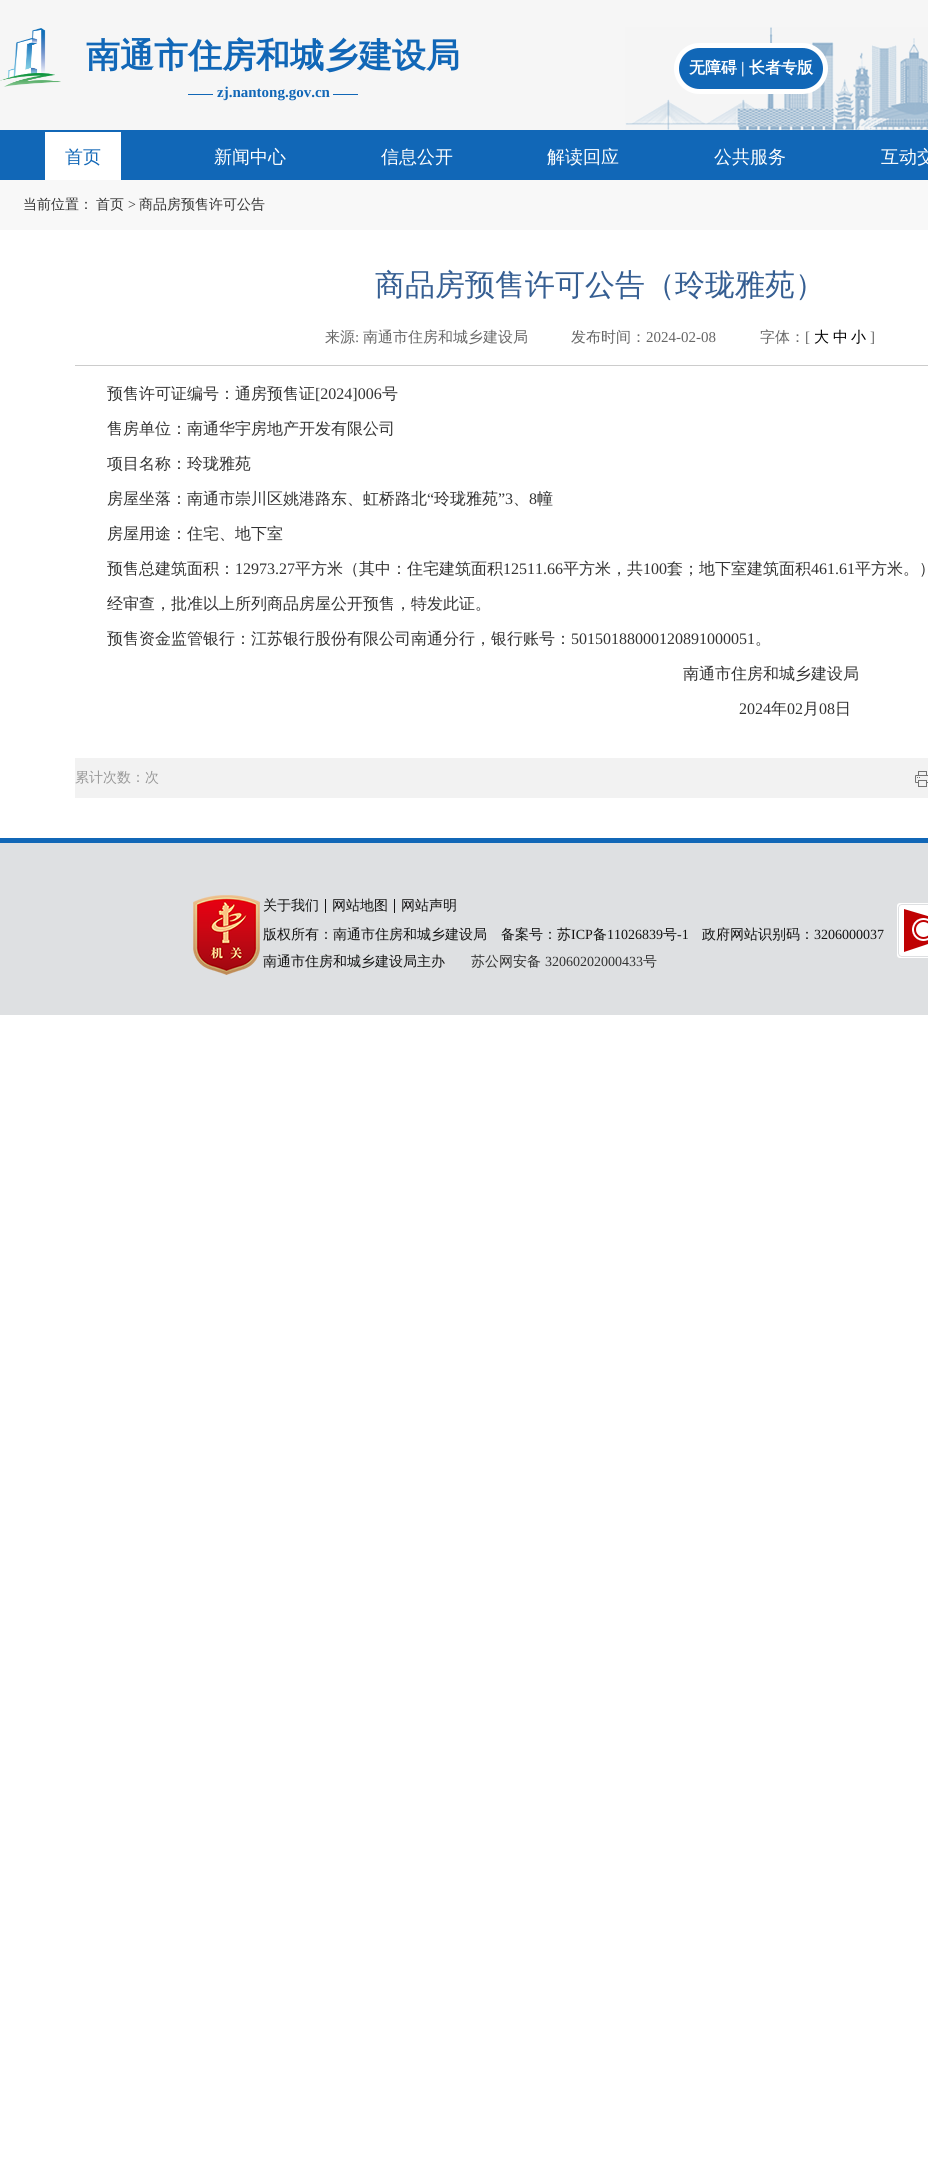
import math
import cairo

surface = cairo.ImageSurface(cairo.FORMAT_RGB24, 928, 2164)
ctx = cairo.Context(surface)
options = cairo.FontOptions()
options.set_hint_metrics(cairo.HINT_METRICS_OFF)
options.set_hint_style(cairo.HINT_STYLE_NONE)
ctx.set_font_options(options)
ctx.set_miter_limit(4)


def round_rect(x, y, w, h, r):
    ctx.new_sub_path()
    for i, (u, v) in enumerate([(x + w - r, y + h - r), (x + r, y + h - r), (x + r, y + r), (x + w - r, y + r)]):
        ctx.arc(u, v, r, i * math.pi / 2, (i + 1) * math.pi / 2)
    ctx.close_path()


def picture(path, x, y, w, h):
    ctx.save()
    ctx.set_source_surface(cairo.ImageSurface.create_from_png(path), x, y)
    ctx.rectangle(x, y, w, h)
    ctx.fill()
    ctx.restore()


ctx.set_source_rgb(1, 1, 1)
ctx.paint()
ctx.set_source_rgb(0.961, 0.961, 0.961)
ctx.rectangle(0, 0, 928, 130)
ctx.fill()
picture("img1.png", 625, 27, 303, 103)
picture("img2.png", 0, 28, 61, 59)
ctx.select_font_face("WenQuanYi Zen Hei", cairo.FONT_SLANT_NORMAL, cairo.FONT_WEIGHT_BOLD)
ctx.set_font_size(34)
ctx.set_source_rgb(0.067, 0.404, 0.718)
ctx.move_to(86, 67)
ctx.show_text("南通市住房和城乡建设局")
ctx.rectangle(188, 94, 25, 1)
ctx.fill()
ctx.select_font_face("Liberation Serif", cairo.FONT_SLANT_NORMAL, cairo.FONT_WEIGHT_BOLD)
ctx.set_font_size(15)
ctx.move_to(217, 97)
ctx.show_text("zj.nantong.gov.cn")
ctx.rectangle(333, 94, 25, 1)
ctx.fill()
round_rect(676.5, 45.5, 149, 46, 23)
ctx.fill_preserve()
ctx.set_source_rgb(1, 1, 1)
ctx.set_line_width(5)
ctx.stroke()
ctx.select_font_face("WenQuanYi Zen Hei", cairo.FONT_SLANT_NORMAL, cairo.FONT_WEIGHT_BOLD)
ctx.set_font_size(16)
ctx.move_to(689, 73)
ctx.show_text("无障碍")
ctx.select_font_face("Liberation Serif", cairo.FONT_SLANT_NORMAL, cairo.FONT_WEIGHT_BOLD)
ctx.move_to(741, 73)
ctx.show_text("|")
ctx.select_font_face("WenQuanYi Zen Hei", cairo.FONT_SLANT_NORMAL, cairo.FONT_WEIGHT_BOLD)
ctx.move_to(749, 73)
ctx.show_text("长者专版")
ctx.set_source_rgb(0.067, 0.404, 0.718)
ctx.rectangle(0, 130, 928, 50)
ctx.fill()
ctx.set_source_rgb(1, 1, 1)
ctx.rectangle(45, 132, 76, 48)
ctx.fill()
ctx.select_font_face("WenQuanYi Zen Hei Medium")
ctx.set_font_size(18)
ctx.set_source_rgb(0.067, 0.404, 0.718)
ctx.move_to(65, 163)
ctx.show_text("首页")
ctx.set_source_rgb(1, 1, 1)
ctx.move_to(214, 163)
ctx.show_text("新闻中心")
ctx.move_to(381, 163)
ctx.show_text("信息公开")
ctx.move_to(547, 163)
ctx.show_text("解读回应")
ctx.move_to(714, 163)
ctx.show_text("公共服务")
ctx.move_to(881, 163)
ctx.show_text("互动交")
ctx.set_source_rgb(0.969, 0.969, 0.969)
ctx.rectangle(0, 180, 928, 50)
ctx.fill()
ctx.set_font_size(14)
ctx.set_source_rgb(0.2, 0.2, 0.2)
ctx.move_to(23, 209)
ctx.show_text("当前位置：")
ctx.move_to(96, 209)
ctx.show_text("首页")
ctx.select_font_face("Liberation Serif")
ctx.move_to(128, 209)
ctx.show_text(">")
ctx.select_font_face("WenQuanYi Zen Hei Medium")
ctx.move_to(139, 209)
ctx.show_text("商品房预售许可公告")
ctx.set_font_size(30)
ctx.set_source_rgb(0.208, 0.369, 0.573)
ctx.move_to(375, 295)
ctx.show_text("商品房预售许可公告（玲珑雅苑）")
ctx.set_source_rgb(0.8, 0.8, 0.8)
ctx.rectangle(75, 365, 853, 1)
ctx.fill()
ctx.set_font_size(15)
ctx.set_source_rgb(0.4, 0.4, 0.4)
ctx.move_to(325, 342)
ctx.show_text("来源")
ctx.select_font_face("Liberation Serif")
ctx.move_to(355, 342)
ctx.show_text(":")
ctx.select_font_face("WenQuanYi Zen Hei Medium")
ctx.move_to(363, 342)
ctx.show_text("南通市住房和城乡建设局")
ctx.move_to(571, 342)
ctx.show_text("发布时间：")
ctx.select_font_face("Liberation Serif")
ctx.move_to(646, 342)
ctx.show_text("2024-02-08")
ctx.select_font_face("WenQuanYi Zen Hei Medium")
ctx.move_to(760, 342)
ctx.show_text("字体：")
ctx.select_font_face("Liberation Serif")
ctx.move_to(805, 342)
ctx.show_text("[")
ctx.select_font_face("WenQuanYi Zen Hei Medium")
ctx.set_source_rgb(0, 0, 0)
ctx.move_to(814, 342)
ctx.show_text("大")
ctx.move_to(833, 342)
ctx.show_text("中")
ctx.move_to(851, 342)
ctx.show_text("小")
ctx.select_font_face("Liberation Serif")
ctx.set_source_rgb(0.4, 0.4, 0.4)
ctx.move_to(870, 342)
ctx.show_text("]")
ctx.select_font_face("WenQuanYi Zen Hei Medium")
ctx.set_font_size(16)
ctx.set_source_rgb(0.2, 0.2, 0.2)
ctx.move_to(107, 399)
ctx.show_text("预售许可证编号：通房预售证")
ctx.select_font_face("Liberation Serif")
ctx.move_to(315, 399)
ctx.show_text("[2024]006")
ctx.select_font_face("WenQuanYi Zen Hei Medium")
ctx.move_to(382, 399)
ctx.show_text("号")
ctx.move_to(107, 434)
ctx.show_text("售房单位：南通华宇房地产开发有限公司")
ctx.move_to(107, 469)
ctx.show_text("项目名称：玲珑雅苑")
ctx.move_to(107, 504)
ctx.show_text("房屋坐落：南通市崇川区姚港路东、虹桥路北")
ctx.select_font_face("Liberation Serif")
ctx.move_to(427, 504)
ctx.show_text("“")
ctx.select_font_face("WenQuanYi Zen Hei Medium")
ctx.move_to(434, 504)
ctx.show_text("玲珑雅苑")
ctx.select_font_face("Liberation Serif")
ctx.move_to(498, 504)
ctx.show_text("”3")
ctx.select_font_face("WenQuanYi Zen Hei Medium")
ctx.move_to(513, 504)
ctx.show_text("、")
ctx.select_font_face("Liberation Serif")
ctx.move_to(529, 504)
ctx.show_text("8")
ctx.select_font_face("WenQuanYi Zen Hei Medium")
ctx.move_to(537, 504)
ctx.show_text("幢")
ctx.move_to(107, 539)
ctx.show_text("房屋用途：住宅、地下室")
ctx.move_to(107, 574)
ctx.show_text("预售总建筑面积：")
ctx.select_font_face("Liberation Serif")
ctx.move_to(235, 574)
ctx.show_text("12973.27")
ctx.select_font_face("WenQuanYi Zen Hei Medium")
ctx.move_to(295, 574)
ctx.show_text("平方米（其中：住宅建筑面积")
ctx.select_font_face("Liberation Serif")
ctx.move_to(503, 574)
ctx.show_text("12511.66")
ctx.select_font_face("WenQuanYi Zen Hei Medium")
ctx.move_to(563, 574)
ctx.show_text("平方米，共")
ctx.select_font_face("Liberation Serif")
ctx.move_to(643, 574)
ctx.show_text("100")
ctx.select_font_face("WenQuanYi Zen Hei Medium")
ctx.move_to(667, 574)
ctx.show_text("套；地下室建筑面积")
ctx.select_font_face("Liberation Serif")
ctx.move_to(811, 574)
ctx.show_text("461.61")
ctx.select_font_face("WenQuanYi Zen Hei Medium")
ctx.move_to(855, 574)
ctx.show_text("平方米。）")
ctx.move_to(107, 609)
ctx.show_text("经审查，批准以上所列商品房屋公开预售，特发此证。")
ctx.move_to(107, 644)
ctx.show_text("预售资金监管银行：江苏银行股份有限公司南通分行，银行账号：")
ctx.select_font_face("Liberation Serif")
ctx.move_to(571, 644)
ctx.show_text("50150188000120891000051")
ctx.select_font_face("WenQuanYi Zen Hei Medium")
ctx.move_to(755, 644)
ctx.show_text("。")
ctx.move_to(683, 679)
ctx.show_text("南通市住房和城乡建设局")
ctx.select_font_face("Liberation Serif")
ctx.move_to(739, 714)
ctx.show_text("2024")
ctx.select_font_face("WenQuanYi Zen Hei Medium")
ctx.move_to(771, 714)
ctx.show_text("年")
ctx.select_font_face("Liberation Serif")
ctx.move_to(787, 714)
ctx.show_text("02")
ctx.select_font_face("WenQuanYi Zen Hei Medium")
ctx.move_to(803, 714)
ctx.show_text("月")
ctx.select_font_face("Liberation Serif")
ctx.move_to(819, 714)
ctx.show_text("08")
ctx.select_font_face("WenQuanYi Zen Hei Medium")
ctx.move_to(835, 714)
ctx.show_text("日")
ctx.set_source_rgb(0.949, 0.949, 0.949)
ctx.rectangle(75, 758, 853, 40)
ctx.fill()
ctx.set_font_size(14)
ctx.set_source_rgb(0.6, 0.6, 0.6)
ctx.move_to(75, 782)
ctx.show_text("累计次数：次")
picture("img3.png", 915, 771, 13, 16)
ctx.set_source_rgb(0.871, 0.878, 0.886)
ctx.rectangle(0, 843, 928, 172)
ctx.fill()
ctx.set_source_rgb(0.067, 0.404, 0.718)
ctx.rectangle(0, 838, 928, 5)
ctx.fill()
picture("img4.png", 193, 895, 67, 80)
ctx.set_source_rgb(0.075, 0.075, 0.075)
ctx.move_to(263, 910)
ctx.show_text("关于我们")
ctx.rectangle(325, 899, 1, 14)
ctx.fill()
ctx.move_to(332, 910)
ctx.show_text("网站地图")
ctx.rectangle(394, 899, 1, 14)
ctx.fill()
ctx.move_to(401, 910)
ctx.show_text("网站声明")
ctx.move_to(263, 939)
ctx.show_text("版权所有：南通市住房和城乡建设局")
ctx.move_to(501, 939)
ctx.show_text("备案号：苏")
ctx.select_font_face("Liberation Serif")
ctx.move_to(571, 939)
ctx.show_text("ICP")
ctx.select_font_face("WenQuanYi Zen Hei Medium")
ctx.move_to(593, 939)
ctx.show_text("备")
ctx.select_font_face("Liberation Serif")
ctx.move_to(607, 939)
ctx.show_text("11026839")
ctx.select_font_face("WenQuanYi Zen Hei Medium")
ctx.move_to(663, 939)
ctx.show_text("号")
ctx.select_font_face("Liberation Serif")
ctx.move_to(677, 939)
ctx.show_text("-1")
ctx.select_font_face("WenQuanYi Zen Hei Medium")
ctx.move_to(702, 939)
ctx.show_text("政府网站识别码：")
ctx.select_font_face("Liberation Serif")
ctx.move_to(814, 939)
ctx.show_text("3206000037")
ctx.select_font_face("WenQuanYi Zen Hei Medium")
ctx.move_to(263, 966)
ctx.show_text("南通市住房和城乡建设局主办")
ctx.set_source_rgb(0.2, 0.2, 0.2)
ctx.move_to(471, 966)
ctx.show_text("苏公网安备")
ctx.select_font_face("Liberation Serif")
ctx.move_to(545, 966)
ctx.show_text("32060202000433")
ctx.select_font_face("WenQuanYi Zen Hei Medium")
ctx.move_to(643, 966)
ctx.show_text("号")
picture("img5.png", 897, 903, 31, 55)
surface.write_to_png("page.png")
